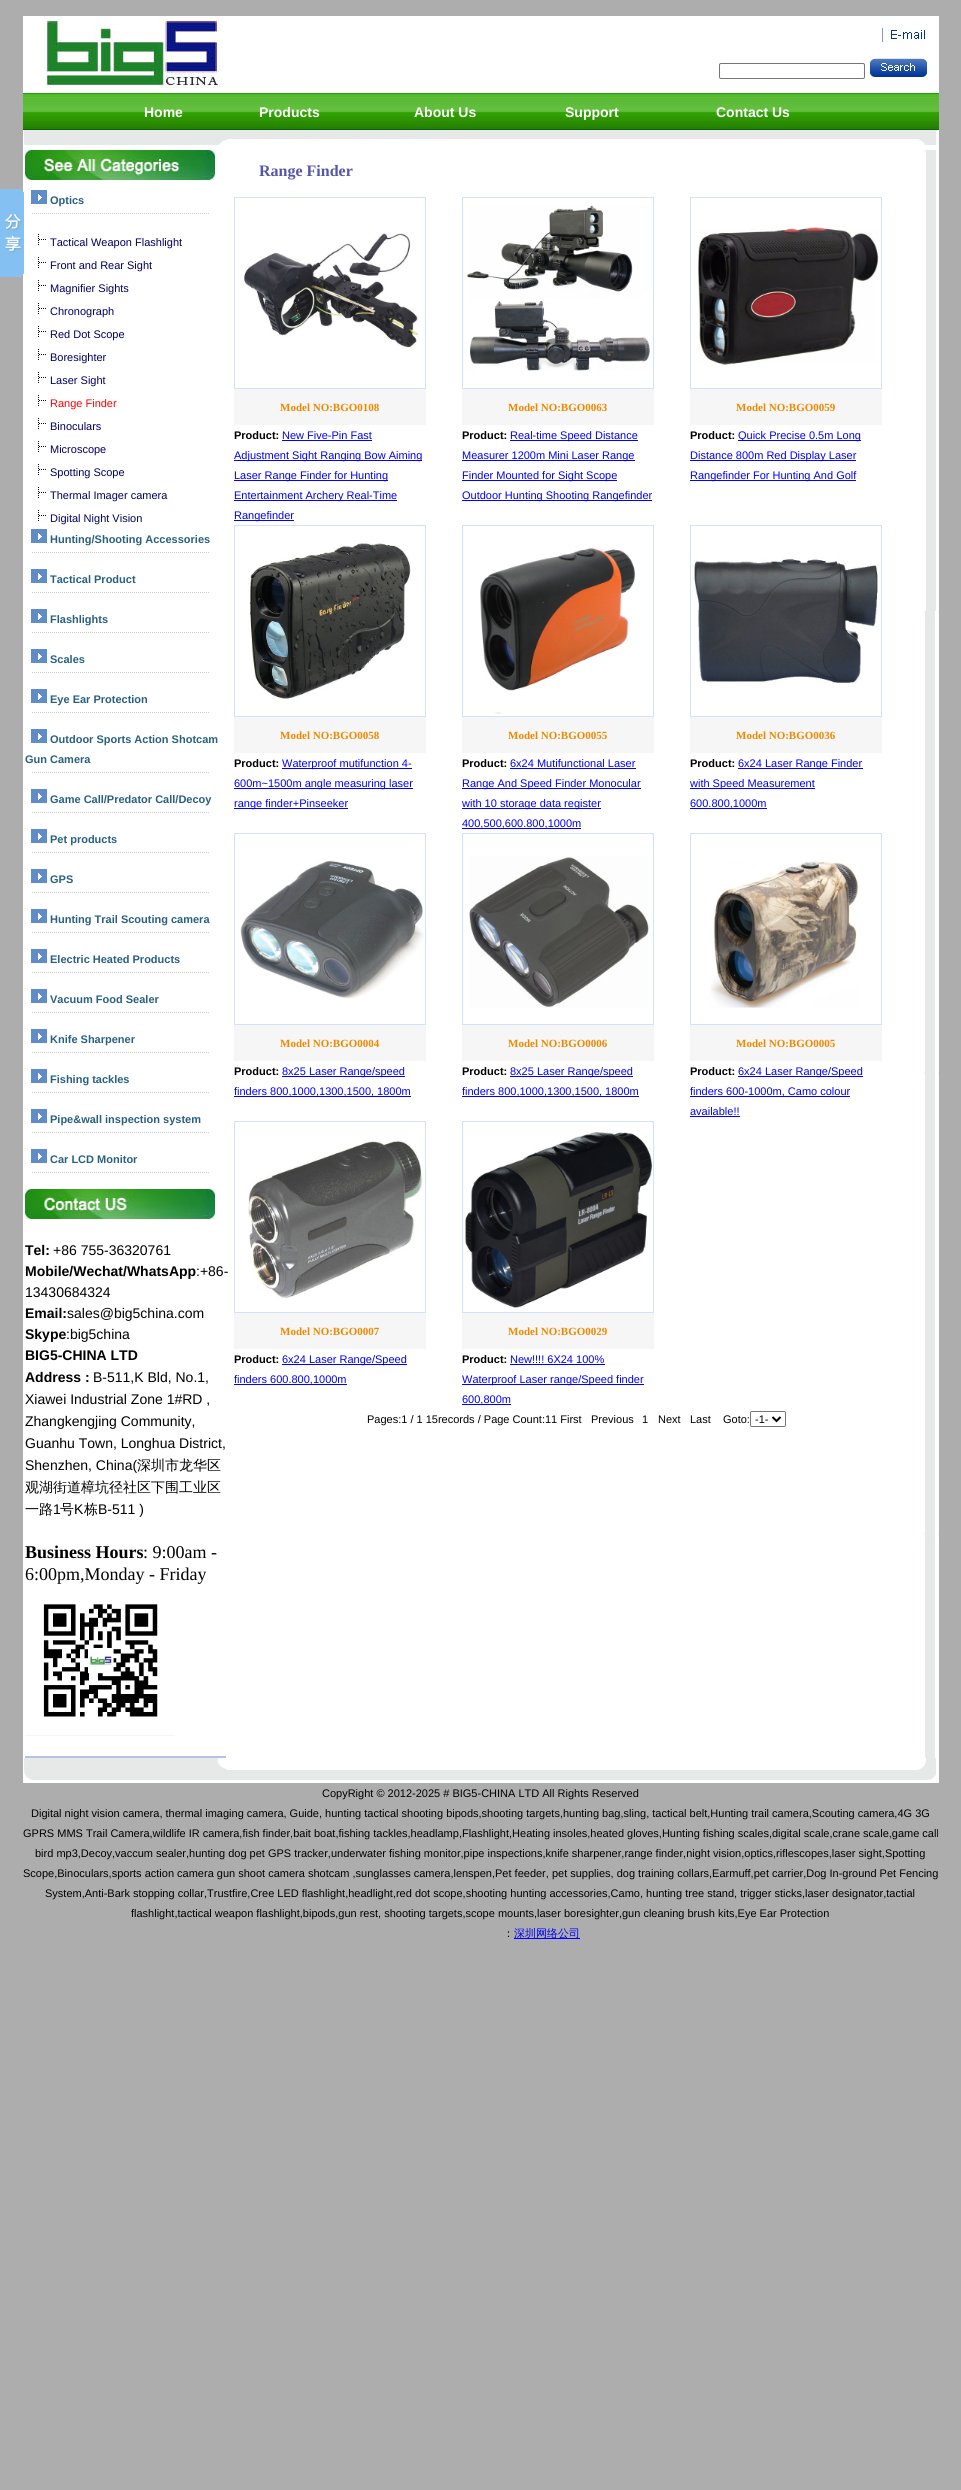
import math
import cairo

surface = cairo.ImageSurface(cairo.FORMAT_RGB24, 961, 2490)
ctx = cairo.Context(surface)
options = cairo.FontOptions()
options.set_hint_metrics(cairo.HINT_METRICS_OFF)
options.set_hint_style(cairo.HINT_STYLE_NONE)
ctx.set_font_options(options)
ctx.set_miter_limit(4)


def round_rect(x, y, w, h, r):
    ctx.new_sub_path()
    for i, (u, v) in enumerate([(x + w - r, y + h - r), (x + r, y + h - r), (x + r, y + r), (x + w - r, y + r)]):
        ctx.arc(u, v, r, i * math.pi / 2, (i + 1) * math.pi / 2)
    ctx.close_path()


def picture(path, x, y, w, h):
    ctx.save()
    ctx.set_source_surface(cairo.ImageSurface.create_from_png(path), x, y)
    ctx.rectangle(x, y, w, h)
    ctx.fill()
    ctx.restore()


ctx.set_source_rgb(0.682, 0.678, 0.678)
ctx.paint()
ctx.set_source_rgb(1, 1, 1)
ctx.rectangle(23, 130, 916, 1653)
ctx.fill()
picture("img1.png", 0, 189, 24, 88)
ctx.rectangle(23, 16, 916, 77)
ctx.fill()
picture("img2.png", 46, 16, 176, 72)
picture("img3.png", 882, 28, 45, 15)
round_rect(719.5, 63.5, 145, 15, 1.5)
ctx.set_source_rgb(0.463, 0.463, 0.463)
ctx.set_line_width(1)
ctx.stroke()
picture("img4.png", 870, 58, 57, 19)
picture("img5.png", 23, 93, 916, 37)
ctx.select_font_face("Liberation Sans", cairo.FONT_SLANT_NORMAL, cairo.FONT_WEIGHT_BOLD)
ctx.set_font_size(14)
ctx.set_source_rgb(1, 1, 1)
ctx.move_to(144, 117)
ctx.show_text("Home")
ctx.move_to(259, 117)
ctx.show_text("Products")
ctx.move_to(414, 117)
ctx.show_text("About Us")
ctx.move_to(565, 117)
ctx.show_text("Support")
ctx.move_to(716, 117)
ctx.show_text("Contact Us")
picture("img6.png", 24, 130, 913, 15)
picture("img7.png", 25, 150, 190, 30)
picture("img8.png", 31, 190, 16, 14)
ctx.set_font_size(11)
ctx.set_source_rgb(0.157, 0.376, 0.514)
ctx.move_to(50, 204)
ctx.show_text("Optics")
picture("img9.png", 32, 213, 177, 1)
picture("img10.png", 38, 234, 8, 11)
ctx.select_font_face("Liberation Sans")
ctx.set_source_rgb(0, 0, 0.4)
ctx.move_to(50, 246)
ctx.show_text("Tactical Weapon Flashlight")
picture("img10.png", 38, 257, 8, 11)
ctx.move_to(50, 269)
ctx.show_text("Front and Rear Sight")
picture("img10.png", 38, 280, 8, 11)
ctx.move_to(50, 292)
ctx.show_text("Magnifier Sights")
picture("img10.png", 38, 303, 8, 11)
ctx.move_to(50, 315)
ctx.show_text("Chronograph")
picture("img10.png", 38, 326, 8, 11)
ctx.move_to(50, 338)
ctx.show_text("Red Dot Scope")
picture("img10.png", 38, 349, 8, 11)
ctx.move_to(50, 361)
ctx.show_text("Boresighter")
picture("img10.png", 38, 372, 8, 11)
ctx.move_to(50, 384)
ctx.show_text("Laser Sight")
picture("img10.png", 38, 395, 8, 11)
ctx.set_source_rgb(1, 0, 0)
ctx.move_to(50, 407)
ctx.show_text("Range Finder")
picture("img10.png", 38, 418, 8, 11)
ctx.set_source_rgb(0, 0, 0.4)
ctx.move_to(50, 430)
ctx.show_text("Binoculars")
picture("img10.png", 38, 441, 8, 11)
ctx.move_to(50, 453)
ctx.show_text("Microscope")
picture("img10.png", 38, 464, 8, 11)
ctx.move_to(50, 476)
ctx.show_text("Spotting Scope")
picture("img10.png", 38, 487, 8, 11)
ctx.move_to(50, 499)
ctx.show_text("Thermal Imager camera")
picture("img10.png", 38, 510, 8, 11)
ctx.move_to(50, 522)
ctx.show_text("Digital Night Vision")
picture("img8.png", 31, 529, 16, 14)
ctx.select_font_face("Liberation Sans", cairo.FONT_SLANT_NORMAL, cairo.FONT_WEIGHT_BOLD)
ctx.set_source_rgb(0.157, 0.376, 0.514)
ctx.move_to(50, 543)
ctx.show_text("Hunting/Shooting Accessories")
picture("img9.png", 32, 552, 177, 1)
picture("img8.png", 31, 569, 16, 14)
ctx.move_to(50, 583)
ctx.show_text("Tactical Product")
picture("img9.png", 32, 592, 177, 1)
picture("img8.png", 31, 609, 16, 14)
ctx.move_to(50, 623)
ctx.show_text("Flashlights")
picture("img9.png", 32, 632, 177, 1)
picture("img8.png", 31, 649, 16, 14)
ctx.move_to(50, 663)
ctx.show_text("Scales")
picture("img9.png", 32, 672, 177, 1)
picture("img8.png", 31, 689, 16, 14)
ctx.move_to(50, 703)
ctx.show_text("Eye Ear Protection")
picture("img9.png", 32, 712, 177, 1)
picture("img8.png", 31, 729, 16, 14)
ctx.move_to(50, 743)
ctx.show_text("Outdoor Sports Action Shotcam")
ctx.move_to(25, 763)
ctx.show_text("Gun Camera")
picture("img9.png", 32, 772, 177, 1)
picture("img8.png", 31, 789, 16, 14)
ctx.move_to(50, 803)
ctx.show_text("Game Call/Predator Call/Decoy")
picture("img9.png", 32, 812, 177, 1)
picture("img8.png", 31, 829, 16, 14)
ctx.move_to(50, 843)
ctx.show_text("Pet products")
picture("img9.png", 32, 852, 177, 1)
picture("img8.png", 31, 869, 16, 14)
ctx.move_to(50, 883)
ctx.show_text("GPS")
picture("img9.png", 32, 892, 177, 1)
picture("img8.png", 31, 909, 16, 14)
ctx.move_to(50, 923)
ctx.show_text("Hunting Trail Scouting camera")
picture("img9.png", 32, 932, 177, 1)
picture("img8.png", 31, 949, 16, 14)
ctx.move_to(50, 963)
ctx.show_text("Electric Heated Products")
picture("img9.png", 32, 972, 177, 1)
picture("img8.png", 31, 989, 16, 14)
ctx.move_to(50, 1003)
ctx.show_text("Vacuum Food Sealer")
picture("img9.png", 32, 1012, 177, 1)
picture("img8.png", 31, 1029, 16, 14)
ctx.move_to(50, 1043)
ctx.show_text("Knife Sharpener")
picture("img9.png", 32, 1052, 177, 1)
picture("img8.png", 31, 1069, 16, 14)
ctx.move_to(50, 1083)
ctx.show_text("Fishing tackles")
picture("img9.png", 32, 1092, 177, 1)
picture("img8.png", 31, 1109, 16, 14)
ctx.move_to(50, 1123)
ctx.show_text("Pipe&wall inspection system")
picture("img9.png", 32, 1132, 177, 1)
picture("img8.png", 31, 1149, 16, 14)
ctx.move_to(50, 1163)
ctx.show_text("Car LCD Monitor")
picture("img9.png", 32, 1172, 177, 1)
picture("img11.png", 25, 1189, 190, 30)
ctx.set_font_size(14)
ctx.set_source_rgb(0, 0, 0)
ctx.move_to(25, 1255)
ctx.show_text("Tel:")
ctx.select_font_face("Liberation Sans")
ctx.move_to(53, 1255)
ctx.show_text("+86 755-36320761")
ctx.select_font_face("Liberation Sans", cairo.FONT_SLANT_NORMAL, cairo.FONT_WEIGHT_BOLD)
ctx.move_to(25, 1276)
ctx.show_text("Mobile/Wechat/WhatsApp")
ctx.select_font_face("Liberation Sans")
ctx.move_to(196, 1276)
ctx.show_text(":+86-")
ctx.move_to(25, 1297)
ctx.show_text("13430684324")
ctx.select_font_face("Liberation Sans", cairo.FONT_SLANT_NORMAL, cairo.FONT_WEIGHT_BOLD)
ctx.move_to(25, 1318)
ctx.show_text("Email:")
ctx.select_font_face("Liberation Sans")
ctx.move_to(67, 1318)
ctx.show_text("sales@big5china.com")
ctx.select_font_face("Liberation Sans", cairo.FONT_SLANT_NORMAL, cairo.FONT_WEIGHT_BOLD)
ctx.move_to(25, 1339)
ctx.show_text("Skype")
ctx.select_font_face("Liberation Sans")
ctx.move_to(66, 1339)
ctx.show_text(":big5china")
ctx.select_font_face("Liberation Sans", cairo.FONT_SLANT_NORMAL, cairo.FONT_WEIGHT_BOLD)
ctx.move_to(25, 1360)
ctx.show_text("BIG5-CHINA LTD")
ctx.move_to(25, 1382)
ctx.show_text("Address :")
ctx.select_font_face("Liberation Sans")
ctx.move_to(93, 1382)
ctx.show_text("B-511,K Bld, No.1,")
ctx.move_to(25, 1404)
ctx.show_text("Xiawei Industrial Zone 1#RD ,")
ctx.move_to(25, 1426)
ctx.show_text("Zhangkengjing Community,")
ctx.move_to(25, 1448)
ctx.show_text("Guanhu Town, Longhua District,")
ctx.move_to(25, 1470)
ctx.show_text("Shenzhen, China(")
ctx.select_font_face("WenQuanYi Zen Hei Medium")
ctx.move_to(137, 1470)
ctx.show_text("深圳市龙华区")
ctx.move_to(25, 1492)
ctx.show_text("观湖街道樟坑径社区下围工业区")
ctx.move_to(25, 1514)
ctx.show_text("一路")
ctx.select_font_face("Liberation Sans")
ctx.move_to(53, 1514)
ctx.show_text("1")
ctx.select_font_face("WenQuanYi Zen Hei Medium")
ctx.move_to(60, 1514)
ctx.show_text("号")
ctx.select_font_face("Liberation Sans")
ctx.move_to(74, 1514)
ctx.show_text("K")
ctx.select_font_face("WenQuanYi Zen Hei Medium")
ctx.move_to(84, 1514)
ctx.show_text("栋")
ctx.select_font_face("Liberation Sans")
ctx.move_to(98, 1514)
ctx.show_text("B-511 )")
ctx.select_font_face("Liberation Serif", cairo.FONT_SLANT_NORMAL, cairo.FONT_WEIGHT_BOLD)
ctx.set_font_size(18)
ctx.move_to(25, 1558)
ctx.show_text("Business Hours")
ctx.select_font_face("Liberation Serif")
ctx.move_to(143, 1558)
ctx.show_text(": 9:00am -")
ctx.move_to(25, 1580)
ctx.show_text("6:00pm,Monday - Friday")
picture("img12.png", 25, 1604, 150, 132)
ctx.set_source_rgb(0.706, 0.765, 0.882)
ctx.rectangle(25, 1756, 201, 2)
ctx.fill()
ctx.select_font_face("Liberation Serif", cairo.FONT_SLANT_NORMAL, cairo.FONT_WEIGHT_BOLD)
ctx.set_font_size(16)
ctx.set_source_rgb(0.333, 0.333, 0.667)
ctx.move_to(259, 176)
ctx.show_text("Range Finder")
ctx.rectangle(234.5, 197.5, 191, 191)
ctx.set_source_rgb(0.827, 0.886, 0.973)
ctx.stroke()
picture("img13.png", 244, 233, 176, 115)
ctx.set_source_rgb(0.961, 0.961, 0.961)
ctx.rectangle(234, 389, 192, 36)
ctx.fill()
ctx.set_font_size(11)
ctx.set_source_rgb(0.941, 0.533, 0)
ctx.move_to(280, 411)
ctx.show_text("Model NO:BGO0108")
ctx.select_font_face("Liberation Sans", cairo.FONT_SLANT_NORMAL, cairo.FONT_WEIGHT_BOLD)
ctx.set_source_rgb(0, 0, 0)
ctx.move_to(234, 439)
ctx.show_text("Product:")
ctx.select_font_face("Liberation Sans")
ctx.set_source_rgb(0, 0, 1)
ctx.move_to(282, 439)
ctx.show_text("New Five-Pin Fast")
ctx.rectangle(282, 440, 90, 1)
ctx.fill()
ctx.rectangle(234, 460, 188, 1)
ctx.fill()
ctx.move_to(234, 459)
ctx.show_text("Adjustment Sight Ranging Bow Aiming")
ctx.rectangle(234, 480, 154, 1)
ctx.fill()
ctx.move_to(234, 479)
ctx.show_text("Laser Range Finder for Hunting")
ctx.rectangle(234, 500, 163, 1)
ctx.fill()
ctx.move_to(234, 499)
ctx.show_text("Entertainment Archery Real-Time")
ctx.rectangle(234, 520, 60, 1)
ctx.fill()
ctx.move_to(234, 519)
ctx.show_text("Rangefinder")
ctx.rectangle(462.5, 197.5, 191, 191)
ctx.set_source_rgb(0.827, 0.886, 0.973)
ctx.stroke()
picture("img14.png", 467, 205, 183, 166)
ctx.set_source_rgb(0.961, 0.961, 0.961)
ctx.rectangle(462, 389, 192, 36)
ctx.fill()
ctx.select_font_face("Liberation Serif", cairo.FONT_SLANT_NORMAL, cairo.FONT_WEIGHT_BOLD)
ctx.set_source_rgb(0.941, 0.533, 0)
ctx.move_to(508, 411)
ctx.show_text("Model NO:BGO0063")
ctx.select_font_face("Liberation Sans", cairo.FONT_SLANT_NORMAL, cairo.FONT_WEIGHT_BOLD)
ctx.set_source_rgb(0, 0, 0)
ctx.move_to(462, 439)
ctx.show_text("Product:")
ctx.set_source_rgb(0, 0, 1)
ctx.rectangle(510, 440, 128, 1)
ctx.fill()
ctx.select_font_face("Liberation Sans")
ctx.move_to(510, 439)
ctx.show_text("Real-time Speed Distance")
ctx.rectangle(462, 460, 173, 1)
ctx.fill()
ctx.move_to(462, 459)
ctx.show_text("Measurer 1200m Mini Laser Range")
ctx.rectangle(462, 480, 155, 1)
ctx.fill()
ctx.move_to(462, 479)
ctx.show_text("Finder Mounted for Sight Scope")
ctx.rectangle(462, 500, 190, 1)
ctx.fill()
ctx.move_to(462, 499)
ctx.show_text("Outdoor Hunting Shooting Rangefinder")
ctx.rectangle(690.5, 197.5, 191, 191)
ctx.set_source_rgb(0.827, 0.886, 0.973)
ctx.stroke()
picture("img15.png", 697, 226, 182, 140)
ctx.set_source_rgb(0.961, 0.961, 0.961)
ctx.rectangle(690, 389, 192, 36)
ctx.fill()
ctx.select_font_face("Liberation Serif", cairo.FONT_SLANT_NORMAL, cairo.FONT_WEIGHT_BOLD)
ctx.set_source_rgb(0.941, 0.533, 0)
ctx.move_to(736, 411)
ctx.show_text("Model NO:BGO0059")
ctx.select_font_face("Liberation Sans", cairo.FONT_SLANT_NORMAL, cairo.FONT_WEIGHT_BOLD)
ctx.set_source_rgb(0, 0, 0)
ctx.move_to(690, 439)
ctx.show_text("Product:")
ctx.set_source_rgb(0, 0, 1)
ctx.rectangle(738, 440, 123, 1)
ctx.fill()
ctx.select_font_face("Liberation Sans")
ctx.move_to(738, 439)
ctx.show_text("Quick Precise 0.5m Long")
ctx.rectangle(690, 460, 166, 1)
ctx.fill()
ctx.move_to(690, 459)
ctx.show_text("Distance 800m Red Display Laser")
ctx.rectangle(690, 480, 166, 1)
ctx.fill()
ctx.move_to(690, 479)
ctx.show_text("Rangefinder For Hunting And Golf")
ctx.rectangle(234.5, 525.5, 191, 191)
ctx.set_source_rgb(0.827, 0.886, 0.973)
ctx.stroke()
picture("img16.png", 248, 543, 163, 156)
ctx.set_source_rgb(0.961, 0.961, 0.961)
ctx.rectangle(234, 717, 192, 36)
ctx.fill()
ctx.select_font_face("Liberation Serif", cairo.FONT_SLANT_NORMAL, cairo.FONT_WEIGHT_BOLD)
ctx.set_source_rgb(0.941, 0.533, 0)
ctx.move_to(280, 739)
ctx.show_text("Model NO:BGO0058")
ctx.select_font_face("Liberation Sans", cairo.FONT_SLANT_NORMAL, cairo.FONT_WEIGHT_BOLD)
ctx.set_source_rgb(0, 0, 0)
ctx.move_to(234, 767)
ctx.show_text("Product:")
ctx.set_source_rgb(0, 0, 1)
ctx.rectangle(282, 768, 130, 1)
ctx.fill()
ctx.select_font_face("Liberation Sans")
ctx.move_to(282, 767)
ctx.show_text("Waterproof mutifunction 4-")
ctx.rectangle(234, 788, 179, 1)
ctx.fill()
ctx.move_to(234, 787)
ctx.show_text("600m~1500m angle measuring laser")
ctx.rectangle(234, 808, 114, 1)
ctx.fill()
ctx.move_to(234, 807)
ctx.show_text("range finder+Pinseeker")
ctx.rectangle(462.5, 525.5, 191, 191)
ctx.set_source_rgb(0.827, 0.886, 0.973)
ctx.stroke()
picture("img17.png", 480, 547, 156, 167)
ctx.set_source_rgb(0.961, 0.961, 0.961)
ctx.rectangle(462, 717, 192, 36)
ctx.fill()
ctx.select_font_face("Liberation Serif", cairo.FONT_SLANT_NORMAL, cairo.FONT_WEIGHT_BOLD)
ctx.set_source_rgb(0.941, 0.533, 0)
ctx.move_to(508, 739)
ctx.show_text("Model NO:BGO0055")
ctx.select_font_face("Liberation Sans", cairo.FONT_SLANT_NORMAL, cairo.FONT_WEIGHT_BOLD)
ctx.set_source_rgb(0, 0, 0)
ctx.move_to(462, 767)
ctx.show_text("Product:")
ctx.select_font_face("Liberation Sans")
ctx.set_source_rgb(0, 0, 1)
ctx.move_to(510, 767)
ctx.show_text("6x24 Mutifunctional Laser")
ctx.rectangle(510, 768, 126, 1)
ctx.fill()
ctx.rectangle(462, 788, 179, 1)
ctx.fill()
ctx.move_to(462, 787)
ctx.show_text("Range And Speed Finder Monocular")
ctx.rectangle(462, 808, 139, 1)
ctx.fill()
ctx.move_to(462, 807)
ctx.show_text("with 10 storage data register")
ctx.rectangle(462, 828, 119, 1)
ctx.fill()
ctx.move_to(462, 827)
ctx.show_text("400,500,600.800,1000m")
ctx.rectangle(690.5, 525.5, 191, 191)
ctx.set_source_rgb(0.827, 0.886, 0.973)
ctx.stroke()
picture("img18.png", 692, 557, 186, 127)
ctx.set_source_rgb(0.961, 0.961, 0.961)
ctx.rectangle(690, 717, 192, 36)
ctx.fill()
ctx.select_font_face("Liberation Serif", cairo.FONT_SLANT_NORMAL, cairo.FONT_WEIGHT_BOLD)
ctx.set_source_rgb(0.941, 0.533, 0)
ctx.move_to(736, 739)
ctx.show_text("Model NO:BGO0036")
ctx.select_font_face("Liberation Sans", cairo.FONT_SLANT_NORMAL, cairo.FONT_WEIGHT_BOLD)
ctx.set_source_rgb(0, 0, 0)
ctx.move_to(690, 767)
ctx.show_text("Product:")
ctx.set_source_rgb(0, 0, 1)
ctx.rectangle(738, 768, 125, 1)
ctx.fill()
ctx.select_font_face("Liberation Sans")
ctx.move_to(738, 767)
ctx.show_text("6x24 Laser Range Finder")
ctx.rectangle(690, 788, 125, 1)
ctx.fill()
ctx.move_to(690, 787)
ctx.show_text("with Speed Measurement")
ctx.rectangle(690, 808, 77, 1)
ctx.fill()
ctx.move_to(690, 807)
ctx.show_text("600.800,1000m")
ctx.rectangle(234.5, 833.5, 191, 191)
ctx.set_source_rgb(0.827, 0.886, 0.973)
ctx.stroke()
picture("img19.png", 240, 860, 184, 139)
ctx.set_source_rgb(0.961, 0.961, 0.961)
ctx.rectangle(234, 1025, 192, 36)
ctx.fill()
ctx.select_font_face("Liberation Serif", cairo.FONT_SLANT_NORMAL, cairo.FONT_WEIGHT_BOLD)
ctx.set_source_rgb(0.941, 0.533, 0)
ctx.move_to(280, 1047)
ctx.show_text("Model NO:BGO0004")
ctx.select_font_face("Liberation Sans", cairo.FONT_SLANT_NORMAL, cairo.FONT_WEIGHT_BOLD)
ctx.set_source_rgb(0, 0, 0)
ctx.move_to(234, 1075)
ctx.show_text("Product:")
ctx.set_source_rgb(0, 0, 1)
ctx.rectangle(282, 1076, 123, 1)
ctx.fill()
ctx.select_font_face("Liberation Sans")
ctx.move_to(282, 1075)
ctx.show_text("8x25 Laser Range/speed")
ctx.rectangle(234, 1096, 177, 1)
ctx.fill()
ctx.move_to(234, 1095)
ctx.show_text("finders 800,1000,1300,1500, 1800m")
ctx.rectangle(462.5, 833.5, 191, 191)
ctx.set_source_rgb(0.827, 0.886, 0.973)
ctx.stroke()
picture("img20.png", 469, 856, 180, 152)
ctx.set_source_rgb(0.961, 0.961, 0.961)
ctx.rectangle(462, 1025, 192, 36)
ctx.fill()
ctx.select_font_face("Liberation Serif", cairo.FONT_SLANT_NORMAL, cairo.FONT_WEIGHT_BOLD)
ctx.set_source_rgb(0.941, 0.533, 0)
ctx.move_to(508, 1047)
ctx.show_text("Model NO:BGO0006")
ctx.select_font_face("Liberation Sans", cairo.FONT_SLANT_NORMAL, cairo.FONT_WEIGHT_BOLD)
ctx.set_source_rgb(0, 0, 0)
ctx.move_to(462, 1075)
ctx.show_text("Product:")
ctx.set_source_rgb(0, 0, 1)
ctx.rectangle(510, 1076, 123, 1)
ctx.fill()
ctx.select_font_face("Liberation Sans")
ctx.move_to(510, 1075)
ctx.show_text("8x25 Laser Range/speed")
ctx.rectangle(462, 1096, 177, 1)
ctx.fill()
ctx.move_to(462, 1095)
ctx.show_text("finders 800,1000,1300,1500, 1800m")
ctx.rectangle(690.5, 833.5, 191, 191)
ctx.set_source_rgb(0.827, 0.886, 0.973)
ctx.stroke()
picture("img21.png", 710, 860, 150, 148)
ctx.set_source_rgb(0.961, 0.961, 0.961)
ctx.rectangle(690, 1025, 192, 36)
ctx.fill()
ctx.select_font_face("Liberation Serif", cairo.FONT_SLANT_NORMAL, cairo.FONT_WEIGHT_BOLD)
ctx.set_source_rgb(0.941, 0.533, 0)
ctx.move_to(736, 1047)
ctx.show_text("Model NO:BGO0005")
ctx.select_font_face("Liberation Sans", cairo.FONT_SLANT_NORMAL, cairo.FONT_WEIGHT_BOLD)
ctx.set_source_rgb(0, 0, 0)
ctx.move_to(690, 1075)
ctx.show_text("Product:")
ctx.set_source_rgb(0, 0, 1)
ctx.rectangle(738, 1076, 125, 1)
ctx.fill()
ctx.select_font_face("Liberation Sans")
ctx.move_to(738, 1075)
ctx.show_text("6x24 Laser Range/Speed")
ctx.rectangle(690, 1096, 160, 1)
ctx.fill()
ctx.move_to(690, 1095)
ctx.show_text("finders 600-1000m, Camo colour")
ctx.move_to(690, 1115)
ctx.show_text("available!!")
ctx.rectangle(690, 1116, 50, 1)
ctx.fill()
ctx.rectangle(234.5, 1121.5, 191, 191)
ctx.set_source_rgb(0.827, 0.886, 0.973)
ctx.stroke()
picture("img22.png", 247, 1140, 176, 160)
ctx.set_source_rgb(0.961, 0.961, 0.961)
ctx.rectangle(234, 1313, 192, 36)
ctx.fill()
ctx.select_font_face("Liberation Serif", cairo.FONT_SLANT_NORMAL, cairo.FONT_WEIGHT_BOLD)
ctx.set_source_rgb(0.941, 0.533, 0)
ctx.move_to(280, 1335)
ctx.show_text("Model NO:BGO0007")
ctx.select_font_face("Liberation Sans", cairo.FONT_SLANT_NORMAL, cairo.FONT_WEIGHT_BOLD)
ctx.set_source_rgb(0, 0, 0)
ctx.move_to(234, 1363)
ctx.show_text("Product:")
ctx.set_source_rgb(0, 0, 1)
ctx.rectangle(282, 1364, 125, 1)
ctx.fill()
ctx.select_font_face("Liberation Sans")
ctx.move_to(282, 1363)
ctx.show_text("6x24 Laser Range/Speed")
ctx.rectangle(234, 1384, 113, 1)
ctx.fill()
ctx.move_to(234, 1383)
ctx.show_text("finders 600.800,1000m")
ctx.rectangle(462.5, 1121.5, 191, 191)
ctx.set_source_rgb(0.827, 0.886, 0.973)
ctx.stroke()
picture("img23.png", 465, 1132, 187, 176)
ctx.set_source_rgb(0.961, 0.961, 0.961)
ctx.rectangle(462, 1313, 192, 36)
ctx.fill()
ctx.select_font_face("Liberation Serif", cairo.FONT_SLANT_NORMAL, cairo.FONT_WEIGHT_BOLD)
ctx.set_source_rgb(0.941, 0.533, 0)
ctx.move_to(508, 1335)
ctx.show_text("Model NO:BGO0029")
ctx.select_font_face("Liberation Sans", cairo.FONT_SLANT_NORMAL, cairo.FONT_WEIGHT_BOLD)
ctx.set_source_rgb(0, 0, 0)
ctx.move_to(462, 1363)
ctx.show_text("Product:")
ctx.select_font_face("Liberation Sans")
ctx.set_source_rgb(0, 0, 1)
ctx.move_to(510, 1363)
ctx.show_text("New!!!! 6X24 100%")
ctx.rectangle(510, 1364, 95, 1)
ctx.fill()
ctx.rectangle(462, 1384, 182, 1)
ctx.fill()
ctx.move_to(462, 1383)
ctx.show_text("Waterproof Laser range/Speed finder")
ctx.rectangle(462, 1404, 49, 1)
ctx.fill()
ctx.move_to(462, 1403)
ctx.show_text("600,800m")
ctx.set_source_rgb(0, 0, 0)
ctx.move_to(367, 1423)
ctx.show_text("Pages:1 / 1 15records / Page Count:11 First")
ctx.move_to(591, 1423)
ctx.show_text("Previous")
ctx.move_to(642, 1423)
ctx.show_text("1")
ctx.move_to(658, 1423)
ctx.show_text("Next")
ctx.move_to(690, 1423)
ctx.show_text("Last")
ctx.move_to(723, 1423)
ctx.show_text("Goto:")
round_rect(750.5, 1411.5, 35, 15, 1.5)
ctx.set_source_rgb(0.463, 0.463, 0.463)
ctx.stroke()
ctx.new_path()
ctx.move_to(772.5, 1417)
ctx.line_to(776.5, 1421)
ctx.line_to(780.5, 1417)
ctx.set_source_rgb(0, 0, 0)
ctx.set_line_width(2)
ctx.stroke()
ctx.move_to(755, 1423)
ctx.show_text("-1-")
picture("img24.png", 924, 150, 15, 1608)
picture("img25.png", 925, 150, 14, 461)
picture("img26.png", 24, 1758, 912, 22)
ctx.move_to(322, 1797)
ctx.show_text("CopyRight © 2012-2025 # BIG5-CHINA LTD All Rights Reserved")
ctx.move_to(31, 1817)
ctx.show_text("Digital night vision camera, thermal imaging camera, Guide, hunting tactical shooting bipods,shooting targets,hunting bag,sling, tactical belt,Hunting trail camera,Scouting camera,4G 3G")
ctx.move_to(23, 1837)
ctx.show_text("GPRS MMS Trail Camera,wildlife IR camera,fish finder,bait boat,fishing tackles,headlamp,Flashlight,Heating insoles,heated gloves,Hunting fishing scales,digital scale,crane scale,game call")
ctx.move_to(35, 1857)
ctx.show_text("bird mp3,Decoy,vaccum sealer,hunting dog pet GPS tracker,underwater fishing monitor,pipe inspections,knife sharpener,range finder,night vision,optics,riflescopes,laser sight,Spotting")
ctx.move_to(23, 1877)
ctx.show_text("Scope,Binoculars,sports action camera gun shoot camera shotcam ,sunglasses camera,lenspen,Pet feeder, pet supplies, dog training collars,Earmuff,pet carrier,Dog In-ground Pet Fencing")
ctx.move_to(45, 1897)
ctx.show_text("System,Anti-Bark stopping collar,Trustfire,Cree LED flashlight,headlight,red dot scope,shooting hunting accessories,Camo, hunting tree stand, trigger sticks,laser designator,tactial")
ctx.move_to(131, 1917)
ctx.show_text("flashlight,tactical weapon flashlight,bipods,gun rest, shooting targets,scope mounts,laser boresighter,gun cleaning brush kits,Eye Ear Protection")
ctx.select_font_face("WenQuanYi Zen Hei Medium")
ctx.move_to(503, 1937)
ctx.show_text("：")
ctx.set_source_rgb(0, 0, 1)
ctx.rectangle(514, 1938, 66, 1)
ctx.fill()
ctx.move_to(514, 1937)
ctx.show_text("深圳网络公司")
surface.write_to_png("page.png")
